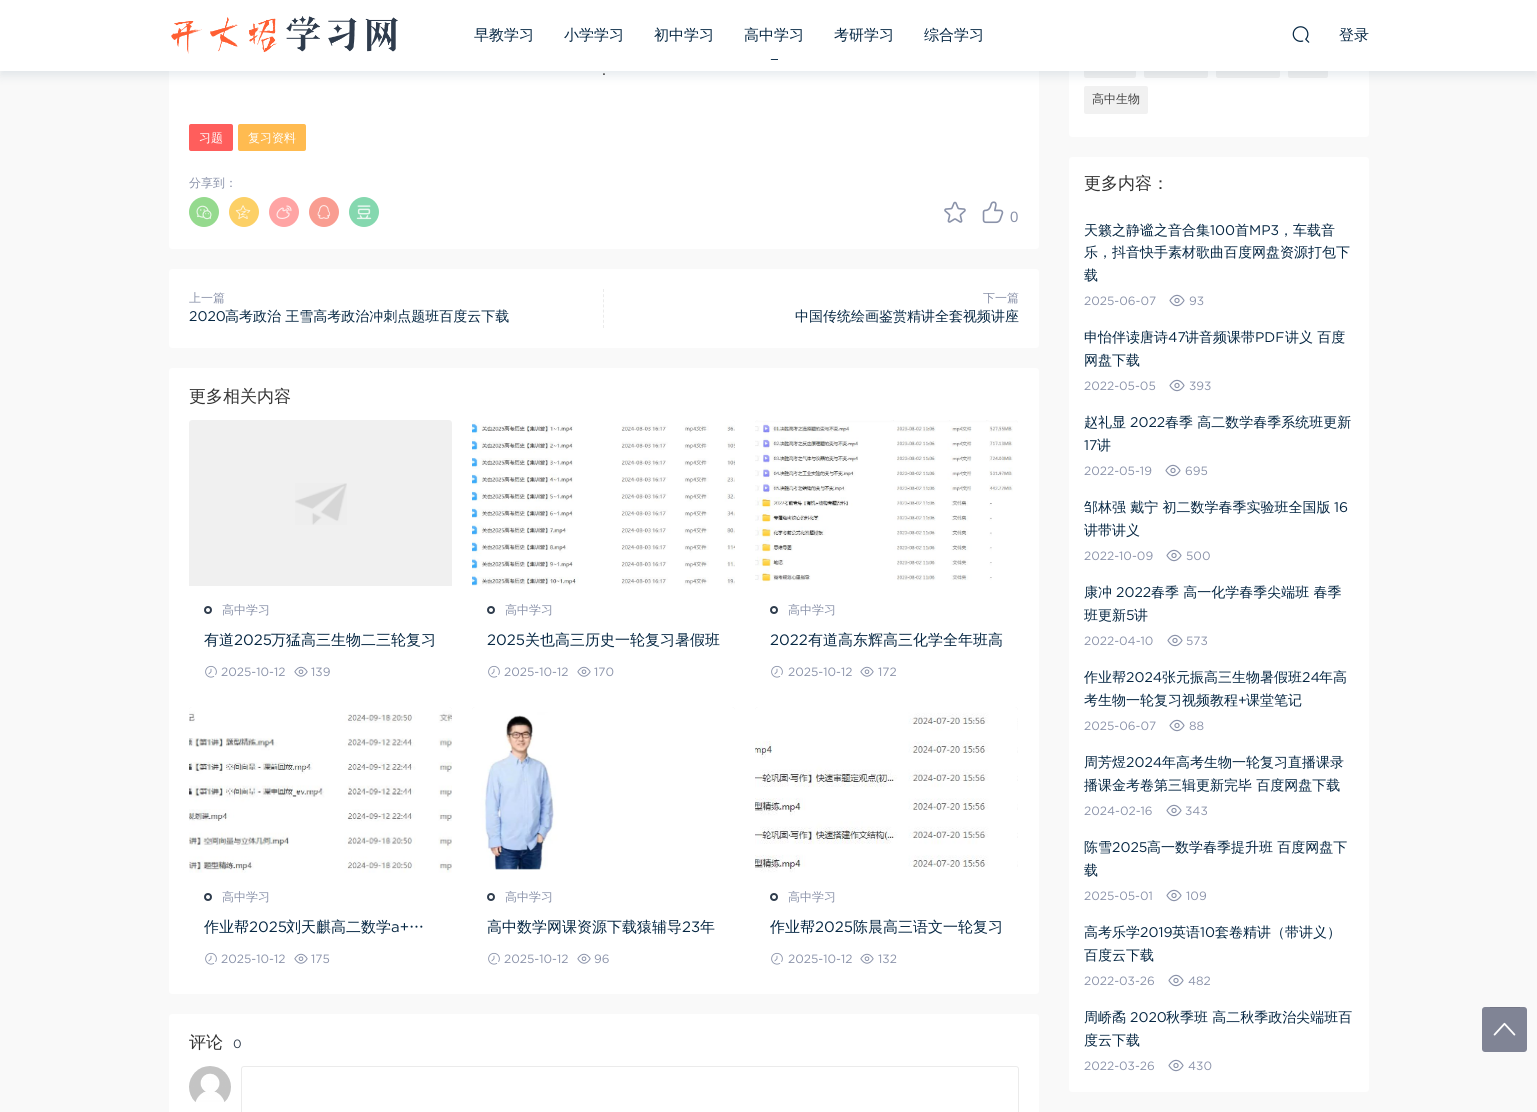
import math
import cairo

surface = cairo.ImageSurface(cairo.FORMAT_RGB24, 1537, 1112)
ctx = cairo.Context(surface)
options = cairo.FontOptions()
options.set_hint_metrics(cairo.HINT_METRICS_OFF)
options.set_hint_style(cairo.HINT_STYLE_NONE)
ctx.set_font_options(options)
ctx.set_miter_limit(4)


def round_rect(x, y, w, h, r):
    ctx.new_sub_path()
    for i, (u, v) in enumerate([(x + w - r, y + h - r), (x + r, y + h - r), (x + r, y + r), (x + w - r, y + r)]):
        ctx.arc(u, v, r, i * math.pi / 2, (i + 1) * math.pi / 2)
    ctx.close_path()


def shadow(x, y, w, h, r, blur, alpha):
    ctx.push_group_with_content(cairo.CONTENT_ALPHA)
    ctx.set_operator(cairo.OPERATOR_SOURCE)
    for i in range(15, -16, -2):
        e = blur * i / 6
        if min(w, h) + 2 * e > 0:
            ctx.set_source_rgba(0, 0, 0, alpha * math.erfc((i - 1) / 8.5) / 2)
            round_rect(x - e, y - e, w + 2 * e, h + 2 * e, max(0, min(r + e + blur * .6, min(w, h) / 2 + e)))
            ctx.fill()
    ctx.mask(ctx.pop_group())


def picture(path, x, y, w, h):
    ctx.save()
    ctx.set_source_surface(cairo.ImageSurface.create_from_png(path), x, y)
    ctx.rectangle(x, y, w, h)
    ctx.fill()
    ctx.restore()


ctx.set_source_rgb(0.976, 0.976, 0.976)
ctx.paint()
ctx.set_source_rgb(1, 1, 1)
round_rect(169, -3, 870, 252, 3)
ctx.fill()
round_rect(1069, -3, 300, 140, 3)
ctx.fill()
ctx.set_source_rgb(0.945, 0.945, 0.945)
round_rect(1084, 50, 52, 28, 2)
ctx.fill()
round_rect(1144, 50, 64, 28, 2)
ctx.fill()
round_rect(1216, 50, 64, 28, 2)
ctx.fill()
round_rect(1288, 50, 40, 28, 2)
ctx.fill()
round_rect(1084, 86, 64, 28, 2)
ctx.fill()
ctx.set_source_rgb(0.067, 0.227, 0.365)
shadow(0, 5, 1537, 71, 0, 5, 0.1)
ctx.set_source_rgb(1, 1, 1)
ctx.rectangle(0, 0, 1537, 71)
ctx.fill()
picture("img1.png", 171, 16, 227, 38)
ctx.select_font_face("WenQuanYi Zen Hei Medium")
ctx.set_font_size(15)
ctx.set_source_rgb(0.024, 0.153, 0.263)
ctx.move_to(474, 40)
ctx.show_text("早教学习")
ctx.move_to(564, 40)
ctx.show_text("小学学习")
ctx.move_to(654, 40)
ctx.show_text("初中学习")
ctx.move_to(744, 40)
ctx.show_text("高中学习")
picture("img2.png", 770, 59, 8, 1)
ctx.move_to(834, 40)
ctx.show_text("考研学习")
ctx.move_to(924, 40)
ctx.show_text("综合学习")
picture("img3.png", 1292, 26, 18, 17)
ctx.move_to(1339, 40)
ctx.show_text("登录")
ctx.select_font_face("Gotham")
ctx.set_font_size(16)
ctx.set_source_rgb(0.2, 0.2, 0.2)
ctx.move_to(602, 75)
ctx.show_text(".")
ctx.set_source_rgb(1, 0.369, 0.361)
round_rect(189, 124, 44, 27, 2)
ctx.fill()
ctx.select_font_face("WenQuanYi Zen Hei Medium")
ctx.set_font_size(12)
ctx.set_source_rgb(1, 1, 1)
ctx.move_to(199, 142)
ctx.show_text("习题")
ctx.set_source_rgb(1, 0.733, 0.314)
round_rect(238, 124, 68, 27, 2)
ctx.fill()
ctx.set_source_rgb(1, 1, 1)
ctx.move_to(248, 142)
ctx.show_text("复习资料")
ctx.set_source_rgb(0.541, 0.573, 0.663)
ctx.move_to(189, 187)
ctx.show_text("分享到：")
ctx.set_source_rgb(0.584, 0.855, 0.557)
ctx.new_path()
ctx.arc(204, 212, 15, 0, 2 * math.pi)
ctx.fill()
picture("img4.png", 196, 205, 16, 15)
ctx.set_source_rgb(0.988, 0.816, 0.4)
ctx.arc(244, 212, 15, 0, 2 * math.pi)
ctx.fill()
picture("img5.png", 235, 205, 16, 14)
ctx.set_source_rgb(1, 0.643, 0.643)
ctx.arc(284, 212, 15, 0, 2 * math.pi)
ctx.fill()
picture("img6.png", 276, 205, 16, 14)
ctx.set_source_rgb(0.973, 0.616, 0.569)
ctx.arc(324, 212, 15, 0, 2 * math.pi)
ctx.fill()
picture("img7.png", 317, 205, 14, 14)
ctx.set_source_rgb(0.522, 0.847, 0.686)
ctx.arc(364, 212, 15, 0, 2 * math.pi)
ctx.fill()
picture("img8.png", 356, 205, 16, 15)
picture("img9.png", 944, 201, 22, 22)
picture("img10.png", 982, 201, 22, 23)
ctx.select_font_face("Liberation Sans")
ctx.set_font_size(15)
ctx.set_source_rgb(0.541, 0.573, 0.663)
ctx.move_to(1010, 222)
ctx.show_text("0")
ctx.set_source_rgb(1, 1, 1)
round_rect(169, 269, 870, 79, 3)
ctx.fill()
ctx.new_path()
ctx.move_to(603.5, 289)
ctx.line_to(603.5, 328)
ctx.set_source_rgb(0.918, 0.918, 0.918)
ctx.set_line_width(1)
ctx.set_dash([3, 2.14])
ctx.stroke()
ctx.select_font_face("WenQuanYi Zen Hei Medium")
ctx.set_font_size(12)
ctx.set_source_rgb(0.541, 0.573, 0.663)
ctx.move_to(189, 302)
ctx.show_text("上一篇")
ctx.select_font_face("Gotham")
ctx.set_font_size(14)
ctx.set_source_rgb(0.024, 0.153, 0.263)
ctx.move_to(189, 321)
ctx.show_text("2020")
ctx.select_font_face("WenQuanYi Zen Hei Medium")
ctx.move_to(225, 321)
ctx.show_text("高考政治 王雪高考政治冲刺点题班百度云下载")
ctx.set_font_size(12)
ctx.set_source_rgb(0.541, 0.573, 0.663)
ctx.move_to(983, 302)
ctx.show_text("下一篇")
ctx.set_font_size(14)
ctx.set_source_rgb(0.024, 0.153, 0.263)
ctx.move_to(795, 321)
ctx.show_text("中国传统绘画鉴赏精讲全套视频讲座")
ctx.set_source_rgb(1, 1, 1)
round_rect(169, 368, 870, 626, 3)
ctx.fill()
ctx.set_font_size(17)
ctx.set_source_rgb(0.2, 0.2, 0.2)
ctx.move_to(189, 402)
ctx.show_text("更多相关内容")
ctx.set_source_rgb(0.941, 0.941, 0.941)
ctx.new_path()
ctx.move_to(192, 420)
ctx.line_to(449, 420)
ctx.curve_to(450.5, 420, 452, 421.5, 452, 423)
ctx.line_to(452, 586)
ctx.line_to(189, 586)
ctx.line_to(189, 423)
ctx.curve_to(189, 421.5, 190.5, 420, 192, 420)
ctx.close_path()
ctx.fill()
picture("img11.png", 295, 483, 52, 42)
ctx.arc(208, 610, 3, 0, 2 * math.pi)
ctx.set_source_rgb(0.184, 0.235, 0.302)
ctx.set_line_width(2)
ctx.set_dash([])
ctx.stroke()
ctx.set_font_size(12)
ctx.set_source_rgb(0.541, 0.573, 0.663)
ctx.move_to(222, 614)
ctx.show_text("高中学习")
ctx.set_font_size(15)
ctx.set_source_rgb(0.024, 0.153, 0.263)
ctx.move_to(204, 645)
ctx.show_text("有道")
ctx.select_font_face("Gotham")
ctx.move_to(234, 645)
ctx.show_text("2025")
ctx.select_font_face("WenQuanYi Zen Hei Medium")
ctx.move_to(271, 645)
ctx.show_text("万猛高三生物二三轮复习")
picture("img12.png", 205, 665, 12, 13)
ctx.select_font_face("Gotham")
ctx.set_font_size(12)
ctx.set_source_rgb(0.541, 0.573, 0.663)
ctx.move_to(221, 676)
ctx.show_text("2025-10-12")
picture("img13.png", 294, 666, 14, 11)
ctx.move_to(311, 676)
ctx.show_text("139")
ctx.set_source_rgb(0.941, 0.941, 0.941)
ctx.new_path()
ctx.move_to(475, 420)
ctx.line_to(732, 420)
ctx.curve_to(733.5, 420, 735, 421.5, 735, 423)
ctx.line_to(735, 586)
ctx.line_to(472, 586)
ctx.line_to(472, 423)
ctx.curve_to(472, 421.5, 473.5, 420, 475, 420)
ctx.close_path()
ctx.fill()
picture("img14.png", 472, 420, 263, 166)
ctx.arc(491, 610, 3, 0, 2 * math.pi)
ctx.set_source_rgb(0.184, 0.235, 0.302)
ctx.stroke()
ctx.select_font_face("WenQuanYi Zen Hei Medium")
ctx.set_source_rgb(0.541, 0.573, 0.663)
ctx.move_to(505, 614)
ctx.show_text("高中学习")
ctx.select_font_face("Gotham")
ctx.set_font_size(15)
ctx.set_source_rgb(0.024, 0.153, 0.263)
ctx.move_to(487, 645)
ctx.show_text("2025")
ctx.select_font_face("WenQuanYi Zen Hei Medium")
ctx.move_to(525, 645)
ctx.show_text("关也高三历史一轮复习暑假班")
picture("img12.png", 488, 665, 12, 13)
ctx.select_font_face("Gotham")
ctx.set_font_size(12)
ctx.set_source_rgb(0.541, 0.573, 0.663)
ctx.move_to(504, 676)
ctx.show_text("2025-10-12")
picture("img13.png", 577, 666, 14, 11)
ctx.move_to(594, 676)
ctx.show_text("170")
ctx.set_source_rgb(0.941, 0.941, 0.941)
ctx.new_path()
ctx.move_to(758, 420)
ctx.line_to(1015, 420)
ctx.curve_to(1016.5, 420, 1018, 421.5, 1018, 423)
ctx.line_to(1018, 586)
ctx.line_to(755, 586)
ctx.line_to(755, 423)
ctx.curve_to(755, 421.5, 756.5, 420, 758, 420)
ctx.close_path()
ctx.fill()
picture("img15.png", 755, 420, 263, 166)
ctx.arc(774, 610, 3, 0, 2 * math.pi)
ctx.set_source_rgb(0.184, 0.235, 0.302)
ctx.stroke()
ctx.select_font_face("WenQuanYi Zen Hei Medium")
ctx.set_source_rgb(0.541, 0.573, 0.663)
ctx.move_to(788, 614)
ctx.show_text("高中学习")
ctx.select_font_face("Gotham")
ctx.set_font_size(15)
ctx.set_source_rgb(0.024, 0.153, 0.263)
ctx.move_to(770, 645)
ctx.show_text("2022")
ctx.select_font_face("WenQuanYi Zen Hei Medium")
ctx.move_to(808, 645)
ctx.show_text("有道高东辉高三化学全年班高")
picture("img12.png", 771, 665, 12, 13)
ctx.select_font_face("Gotham")
ctx.set_font_size(12)
ctx.set_source_rgb(0.541, 0.573, 0.663)
ctx.move_to(788, 676)
ctx.show_text("2025-10-12")
picture("img13.png", 860, 666, 14, 11)
ctx.move_to(878, 676)
ctx.show_text("172")
ctx.set_source_rgb(0.941, 0.941, 0.941)
ctx.new_path()
ctx.move_to(192, 707)
ctx.line_to(449, 707)
ctx.curve_to(450.5, 707, 452, 708.5, 452, 710)
ctx.line_to(452, 873)
ctx.line_to(189, 873)
ctx.line_to(189, 710)
ctx.curve_to(189, 708.5, 190.5, 707, 192, 707)
ctx.close_path()
ctx.fill()
picture("img16.png", 189, 707, 263, 166)
ctx.arc(208, 897, 3, 0, 2 * math.pi)
ctx.set_source_rgb(0.184, 0.235, 0.302)
ctx.stroke()
ctx.select_font_face("WenQuanYi Zen Hei Medium")
ctx.set_source_rgb(0.541, 0.573, 0.663)
ctx.move_to(222, 901)
ctx.show_text("高中学习")
ctx.set_font_size(15)
ctx.set_source_rgb(0.024, 0.153, 0.263)
ctx.move_to(204, 932)
ctx.show_text("作业帮")
ctx.select_font_face("Gotham")
ctx.move_to(249, 932)
ctx.show_text("2025")
ctx.select_font_face("WenQuanYi Zen Hei Medium")
ctx.move_to(286, 932)
ctx.show_text("刘天麒高二数学")
ctx.select_font_face("Gotham")
ctx.move_to(391, 932)
ctx.show_text("a+")
ctx.select_font_face("WenQuanYi Zen Hei Medium")
ctx.move_to(409, 932)
ctx.show_text("…")
picture("img12.png", 205, 952, 12, 13)
ctx.select_font_face("Gotham")
ctx.set_font_size(12)
ctx.set_source_rgb(0.541, 0.573, 0.663)
ctx.move_to(221, 963)
ctx.show_text("2025-10-12")
picture("img13.png", 294, 953, 14, 11)
ctx.move_to(311, 963)
ctx.show_text("175")
ctx.set_source_rgb(0.941, 0.941, 0.941)
ctx.new_path()
ctx.move_to(475, 707)
ctx.line_to(732, 707)
ctx.curve_to(733.5, 707, 735, 708.5, 735, 710)
ctx.line_to(735, 873)
ctx.line_to(472, 873)
ctx.line_to(472, 710)
ctx.curve_to(472, 708.5, 473.5, 707, 475, 707)
ctx.close_path()
ctx.fill()
picture("img17.png", 472, 707, 263, 166)
ctx.arc(491, 897, 3, 0, 2 * math.pi)
ctx.set_source_rgb(0.184, 0.235, 0.302)
ctx.stroke()
ctx.select_font_face("WenQuanYi Zen Hei Medium")
ctx.set_source_rgb(0.541, 0.573, 0.663)
ctx.move_to(505, 901)
ctx.show_text("高中学习")
ctx.set_font_size(15)
ctx.set_source_rgb(0.024, 0.153, 0.263)
ctx.move_to(487, 932)
ctx.show_text("高中数学网课资源下载猿辅导")
ctx.select_font_face("Gotham")
ctx.move_to(682, 932)
ctx.show_text("23")
ctx.select_font_face("WenQuanYi Zen Hei Medium")
ctx.move_to(700, 932)
ctx.show_text("年")
picture("img12.png", 488, 952, 12, 13)
ctx.select_font_face("Gotham")
ctx.set_font_size(12)
ctx.set_source_rgb(0.541, 0.573, 0.663)
ctx.move_to(504, 963)
ctx.show_text("2025-10-12")
picture("img13.png", 577, 953, 14, 11)
ctx.move_to(594, 963)
ctx.show_text("96")
ctx.set_source_rgb(0.941, 0.941, 0.941)
ctx.new_path()
ctx.move_to(758, 707)
ctx.line_to(1015, 707)
ctx.curve_to(1016.5, 707, 1018, 708.5, 1018, 710)
ctx.line_to(1018, 873)
ctx.line_to(755, 873)
ctx.line_to(755, 710)
ctx.curve_to(755, 708.5, 756.5, 707, 758, 707)
ctx.close_path()
ctx.fill()
picture("img18.png", 755, 707, 263, 166)
ctx.arc(774, 897, 3, 0, 2 * math.pi)
ctx.set_source_rgb(0.184, 0.235, 0.302)
ctx.stroke()
ctx.select_font_face("WenQuanYi Zen Hei Medium")
ctx.set_source_rgb(0.541, 0.573, 0.663)
ctx.move_to(788, 901)
ctx.show_text("高中学习")
ctx.set_font_size(15)
ctx.set_source_rgb(0.024, 0.153, 0.263)
ctx.move_to(770, 932)
ctx.show_text("作业帮")
ctx.select_font_face("Gotham")
ctx.move_to(815, 932)
ctx.show_text("2025")
ctx.select_font_face("WenQuanYi Zen Hei Medium")
ctx.move_to(853, 932)
ctx.show_text("陈晨高三语文一轮复习")
picture("img12.png", 771, 952, 12, 13)
ctx.select_font_face("Gotham")
ctx.set_font_size(12)
ctx.set_source_rgb(0.541, 0.573, 0.663)
ctx.move_to(788, 963)
ctx.show_text("2025-10-12")
picture("img13.png", 860, 953, 14, 11)
ctx.move_to(878, 963)
ctx.show_text("132")
ctx.set_source_rgb(1, 1, 1)
round_rect(169, 1014, 870, 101, 3)
ctx.fill()
ctx.select_font_face("WenQuanYi Zen Hei Medium")
ctx.set_font_size(17)
ctx.set_source_rgb(0.2, 0.2, 0.2)
ctx.move_to(189, 1048)
ctx.show_text("评论")
ctx.select_font_face("Gotham")
ctx.set_font_size(12)
ctx.set_source_rgb(0.184, 0.235, 0.302)
ctx.move_to(233, 1048)
ctx.show_text("0")
picture("img19.png", 189, 1066, 42, 36)
round_rect(241.5, 1066.5, 777, 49, 2.5)
ctx.set_source_rgb(0.918, 0.918, 0.918)
ctx.set_line_width(1)
ctx.stroke()
ctx.select_font_face("WenQuanYi Zen Hei Medium")
ctx.set_source_rgb(0.267, 0.267, 0.267)
ctx.move_to(1092, 103)
ctx.show_text("高中生物")
ctx.set_source_rgb(1, 1, 1)
round_rect(1069, 157, 300, 935, 3)
ctx.fill()
ctx.set_font_size(17)
ctx.set_source_rgb(0.2, 0.2, 0.2)
ctx.move_to(1084, 189)
ctx.show_text("更多内容：")
ctx.set_font_size(14)
ctx.set_source_rgb(0.024, 0.153, 0.263)
ctx.move_to(1084, 235)
ctx.show_text("天籁之静谧之音合集")
ctx.select_font_face("Gotham")
ctx.move_to(1210, 235)
ctx.show_text("100")
ctx.select_font_face("WenQuanYi Zen Hei Medium")
ctx.move_to(1235, 235)
ctx.show_text("首")
ctx.select_font_face("Gotham")
ctx.move_to(1249, 235)
ctx.show_text("MP3")
ctx.select_font_face("WenQuanYi Zen Hei Medium")
ctx.move_to(1279, 235)
ctx.show_text("，车载音")
ctx.move_to(1084, 257)
ctx.show_text("乐，抖音快手素材歌曲百度网盘资源打包下")
ctx.move_to(1084, 280)
ctx.show_text("载")
ctx.select_font_face("Gotham")
ctx.set_font_size(12)
ctx.set_source_rgb(0.541, 0.573, 0.663)
ctx.move_to(1084, 305)
ctx.show_text("2025-06-07")
picture("img20.png", 1169, 294, 16, 13)
ctx.move_to(1189, 305)
ctx.show_text("93")
ctx.select_font_face("WenQuanYi Zen Hei Medium")
ctx.set_font_size(14)
ctx.set_source_rgb(0.024, 0.153, 0.263)
ctx.move_to(1084, 342)
ctx.show_text("申怡伴读唐诗")
ctx.select_font_face("Gotham")
ctx.move_to(1168, 342)
ctx.show_text("47")
ctx.select_font_face("WenQuanYi Zen Hei Medium")
ctx.move_to(1185, 342)
ctx.show_text("讲音频课带")
ctx.select_font_face("Gotham")
ctx.move_to(1255, 342)
ctx.show_text("PDF")
ctx.select_font_face("WenQuanYi Zen Hei Medium")
ctx.move_to(1285, 342)
ctx.show_text("讲义 百度")
ctx.move_to(1084, 365)
ctx.show_text("网盘下载")
ctx.select_font_face("Gotham")
ctx.set_font_size(12)
ctx.set_source_rgb(0.541, 0.573, 0.663)
ctx.move_to(1084, 390)
ctx.show_text("2022-05-05")
picture("img20.png", 1169, 379, 16, 13)
ctx.move_to(1189, 390)
ctx.show_text("393")
ctx.select_font_face("WenQuanYi Zen Hei Medium")
ctx.set_font_size(14)
ctx.set_source_rgb(0.024, 0.153, 0.263)
ctx.move_to(1084, 427)
ctx.show_text("赵礼显")
ctx.select_font_face("Gotham")
ctx.move_to(1130, 427)
ctx.show_text("2022")
ctx.select_font_face("WenQuanYi Zen Hei Medium")
ctx.move_to(1165, 427)
ctx.show_text("春季 高二数学春季系统班更新")
ctx.select_font_face("Gotham")
ctx.move_to(1084, 450)
ctx.show_text("17")
ctx.select_font_face("WenQuanYi Zen Hei Medium")
ctx.move_to(1097, 450)
ctx.show_text("讲")
ctx.select_font_face("Gotham")
ctx.set_font_size(12)
ctx.set_source_rgb(0.541, 0.573, 0.663)
ctx.move_to(1084, 475)
ctx.show_text("2022-05-19")
picture("img20.png", 1165, 464, 16, 13)
ctx.move_to(1185, 475)
ctx.show_text("695")
ctx.select_font_face("WenQuanYi Zen Hei Medium")
ctx.set_font_size(14)
ctx.set_source_rgb(0.024, 0.153, 0.263)
ctx.move_to(1084, 512)
ctx.show_text("邹林强 戴宁 初二数学春季实验班全国版")
ctx.select_font_face("Gotham")
ctx.move_to(1334, 512)
ctx.show_text("16")
ctx.select_font_face("WenQuanYi Zen Hei Medium")
ctx.move_to(1084, 535)
ctx.show_text("讲带讲义")
ctx.select_font_face("Gotham")
ctx.set_font_size(12)
ctx.set_source_rgb(0.541, 0.573, 0.663)
ctx.move_to(1084, 560)
ctx.show_text("2022-10-09")
picture("img20.png", 1166, 549, 16, 13)
ctx.move_to(1186, 560)
ctx.show_text("500")
ctx.select_font_face("WenQuanYi Zen Hei Medium")
ctx.set_font_size(14)
ctx.set_source_rgb(0.024, 0.153, 0.263)
ctx.move_to(1084, 597)
ctx.show_text("康冲")
ctx.select_font_face("Gotham")
ctx.move_to(1116, 597)
ctx.show_text("2022")
ctx.select_font_face("WenQuanYi Zen Hei Medium")
ctx.move_to(1151, 597)
ctx.show_text("春季 高一化学春季尖端班 春季")
ctx.move_to(1084, 620)
ctx.show_text("班更新")
ctx.select_font_face("Gotham")
ctx.move_to(1126, 620)
ctx.show_text("5")
ctx.select_font_face("WenQuanYi Zen Hei Medium")
ctx.move_to(1134, 620)
ctx.show_text("讲")
ctx.select_font_face("Gotham")
ctx.set_font_size(12)
ctx.set_source_rgb(0.541, 0.573, 0.663)
ctx.move_to(1084, 645)
ctx.show_text("2022-04-10")
picture("img20.png", 1167, 634, 16, 13)
ctx.move_to(1186, 645)
ctx.show_text("573")
ctx.select_font_face("WenQuanYi Zen Hei Medium")
ctx.set_font_size(14)
ctx.set_source_rgb(0.024, 0.153, 0.263)
ctx.move_to(1084, 682)
ctx.show_text("作业帮")
ctx.select_font_face("Gotham")
ctx.move_to(1126, 682)
ctx.show_text("2024")
ctx.select_font_face("WenQuanYi Zen Hei Medium")
ctx.move_to(1162, 682)
ctx.show_text("张元振高三生物暑假班")
ctx.select_font_face("Gotham")
ctx.move_to(1302, 682)
ctx.show_text("24")
ctx.select_font_face("WenQuanYi Zen Hei Medium")
ctx.move_to(1319, 682)
ctx.show_text("年高")
ctx.move_to(1084, 705)
ctx.show_text("考生物一轮复习视频教程")
ctx.select_font_face("Gotham")
ctx.move_to(1238, 705)
ctx.show_text("+")
ctx.select_font_face("WenQuanYi Zen Hei Medium")
ctx.move_to(1246, 705)
ctx.show_text("课堂笔记")
ctx.select_font_face("Gotham")
ctx.set_font_size(12)
ctx.set_source_rgb(0.541, 0.573, 0.663)
ctx.move_to(1084, 730)
ctx.show_text("2025-06-07")
picture("img20.png", 1169, 719, 16, 13)
ctx.move_to(1189, 730)
ctx.show_text("88")
ctx.select_font_face("WenQuanYi Zen Hei Medium")
ctx.set_font_size(14)
ctx.set_source_rgb(0.024, 0.153, 0.263)
ctx.move_to(1084, 767)
ctx.show_text("周芳煜")
ctx.select_font_face("Gotham")
ctx.move_to(1126, 767)
ctx.show_text("2024")
ctx.select_font_face("WenQuanYi Zen Hei Medium")
ctx.move_to(1162, 767)
ctx.show_text("年高考生物一轮复习直播课录")
ctx.move_to(1084, 790)
ctx.show_text("播课金考卷第三辑更新完毕 百度网盘下载")
ctx.select_font_face("Gotham")
ctx.set_font_size(12)
ctx.set_source_rgb(0.541, 0.573, 0.663)
ctx.move_to(1084, 815)
ctx.show_text("2024-02-16")
picture("img20.png", 1166, 804, 16, 13)
ctx.move_to(1185, 815)
ctx.show_text("343")
ctx.select_font_face("WenQuanYi Zen Hei Medium")
ctx.set_font_size(14)
ctx.set_source_rgb(0.024, 0.153, 0.263)
ctx.move_to(1084, 852)
ctx.show_text("陈雪")
ctx.select_font_face("Gotham")
ctx.move_to(1112, 852)
ctx.show_text("2025")
ctx.select_font_face("WenQuanYi Zen Hei Medium")
ctx.move_to(1147, 852)
ctx.show_text("高一数学春季提升班 百度网盘下")
ctx.move_to(1084, 875)
ctx.show_text("载")
ctx.select_font_face("Gotham")
ctx.set_font_size(12)
ctx.set_source_rgb(0.541, 0.573, 0.663)
ctx.move_to(1084, 900)
ctx.show_text("2025-05-01")
picture("img20.png", 1166, 889, 16, 13)
ctx.move_to(1186, 900)
ctx.show_text("109")
ctx.select_font_face("WenQuanYi Zen Hei Medium")
ctx.set_font_size(14)
ctx.set_source_rgb(0.024, 0.153, 0.263)
ctx.move_to(1084, 937)
ctx.show_text("高考乐学")
ctx.select_font_face("Gotham")
ctx.move_to(1140, 937)
ctx.show_text("2019")
ctx.select_font_face("WenQuanYi Zen Hei Medium")
ctx.move_to(1172, 937)
ctx.show_text("英语")
ctx.select_font_face("Gotham")
ctx.move_to(1200, 937)
ctx.show_text("10")
ctx.select_font_face("WenQuanYi Zen Hei Medium")
ctx.move_to(1215, 937)
ctx.show_text("套卷精讲（带讲义）")
ctx.move_to(1084, 960)
ctx.show_text("百度云下载")
ctx.select_font_face("Gotham")
ctx.set_font_size(12)
ctx.set_source_rgb(0.541, 0.573, 0.663)
ctx.move_to(1084, 985)
ctx.show_text("2022-03-26")
picture("img20.png", 1168, 974, 16, 13)
ctx.move_to(1188, 985)
ctx.show_text("482")
ctx.select_font_face("WenQuanYi Zen Hei Medium")
ctx.set_font_size(14)
ctx.set_source_rgb(0.024, 0.153, 0.263)
ctx.move_to(1084, 1022)
ctx.show_text("周峤矞")
ctx.select_font_face("Gotham")
ctx.move_to(1130, 1022)
ctx.show_text("2020")
ctx.select_font_face("WenQuanYi Zen Hei Medium")
ctx.move_to(1166, 1022)
ctx.show_text("秋季班 高二秋季政治尖端班百")
ctx.move_to(1084, 1045)
ctx.show_text("度云下载")
ctx.select_font_face("Gotham")
ctx.set_font_size(12)
ctx.set_source_rgb(0.541, 0.573, 0.663)
ctx.move_to(1084, 1070)
ctx.show_text("2022-03-26")
picture("img20.png", 1168, 1059, 16, 13)
ctx.move_to(1188, 1070)
ctx.show_text("430")
ctx.set_source_rgb(0.502, 0.518, 0.584)
round_rect(1482, 1007, 45, 45, 3)
ctx.fill()
ctx.set_source_rgb(0.455, 0.467, 0.529)
ctx.rectangle(1490, 1007, 30, 1)
ctx.fill()
picture("img21.png", 1493, 1022, 23, 14)
surface.write_to_png("page.png")
